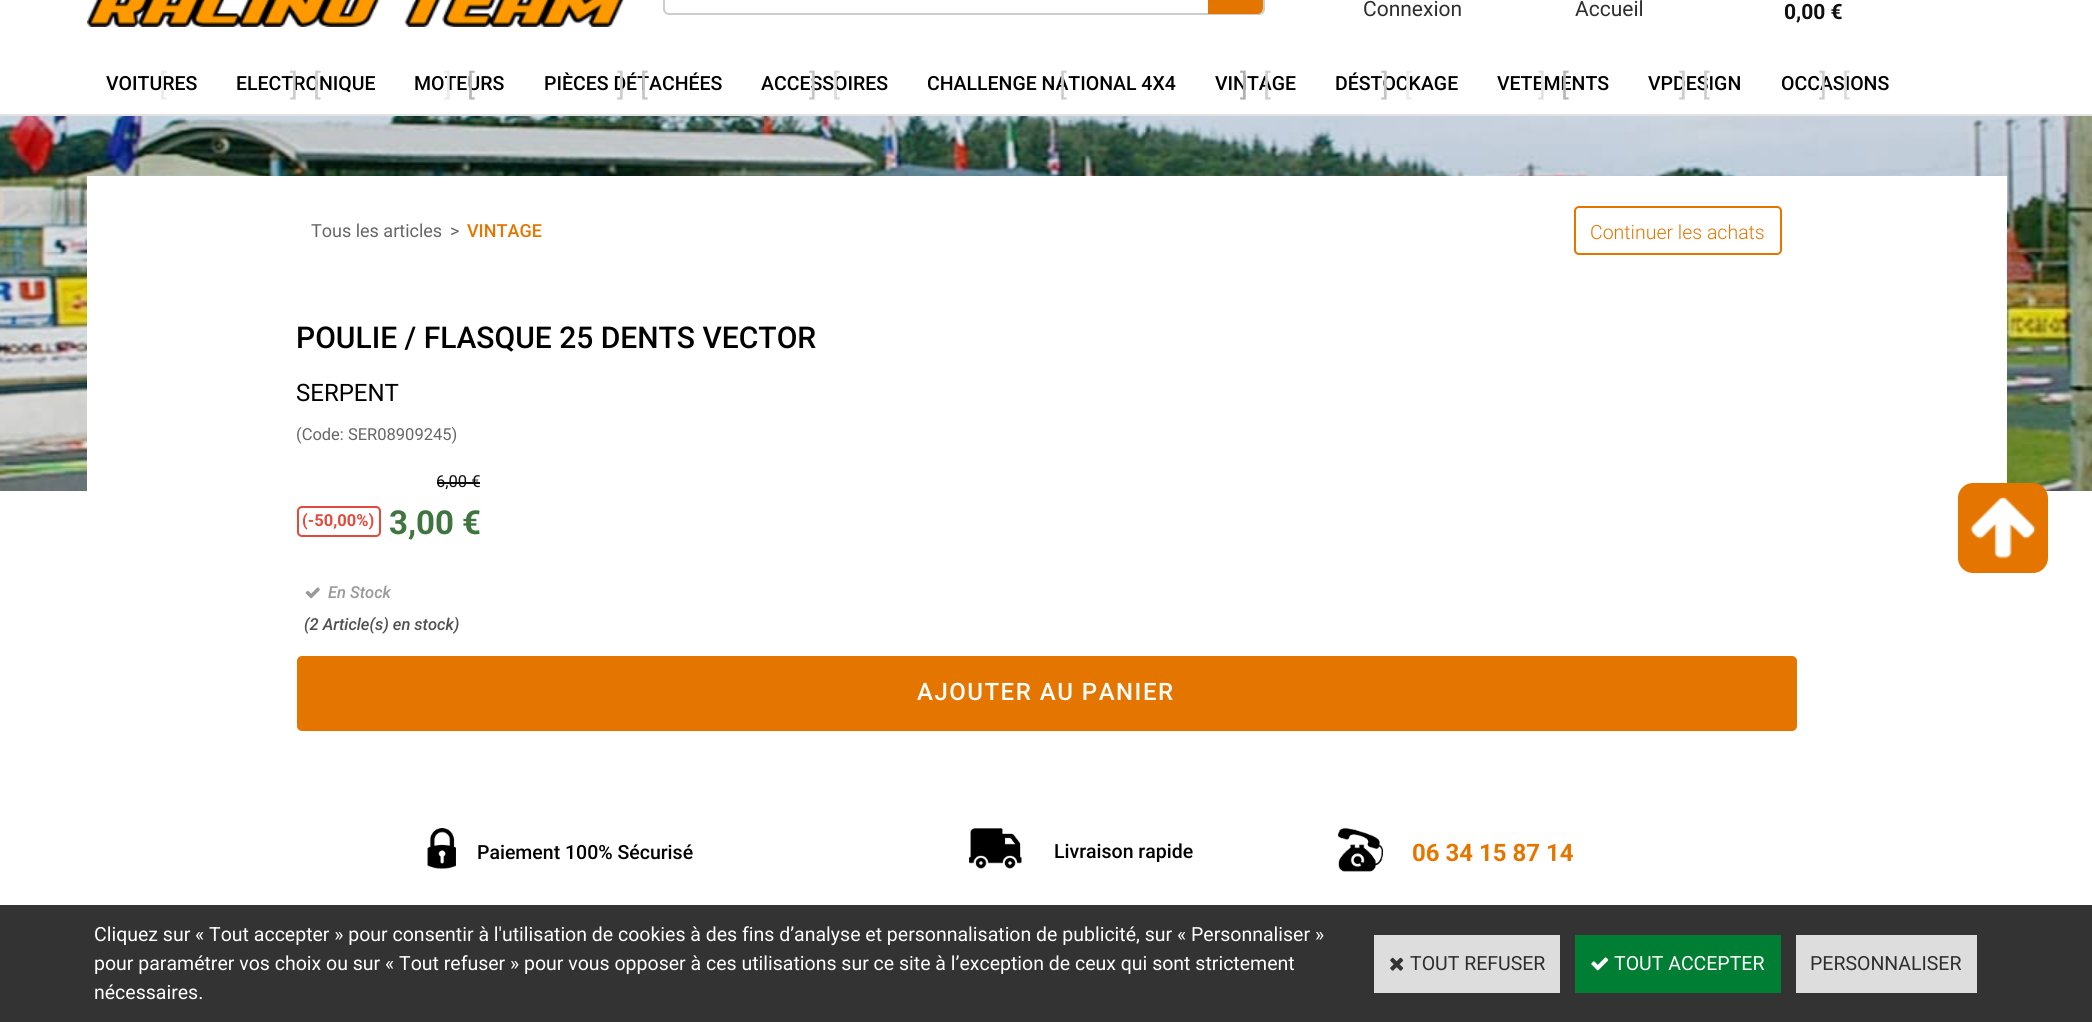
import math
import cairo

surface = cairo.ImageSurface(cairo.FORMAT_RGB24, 2092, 1022)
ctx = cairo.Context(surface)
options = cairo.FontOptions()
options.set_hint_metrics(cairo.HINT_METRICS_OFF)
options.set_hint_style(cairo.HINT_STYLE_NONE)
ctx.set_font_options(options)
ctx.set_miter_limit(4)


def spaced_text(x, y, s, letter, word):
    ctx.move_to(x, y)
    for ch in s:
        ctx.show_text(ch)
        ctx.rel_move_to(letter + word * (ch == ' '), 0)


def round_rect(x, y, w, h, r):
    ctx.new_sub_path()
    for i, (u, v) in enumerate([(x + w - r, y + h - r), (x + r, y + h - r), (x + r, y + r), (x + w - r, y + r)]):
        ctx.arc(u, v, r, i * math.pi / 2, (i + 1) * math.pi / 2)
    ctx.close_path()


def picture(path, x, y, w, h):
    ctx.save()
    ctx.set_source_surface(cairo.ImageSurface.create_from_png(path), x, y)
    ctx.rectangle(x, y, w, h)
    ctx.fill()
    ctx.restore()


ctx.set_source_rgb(1, 1, 1)
ctx.paint()
picture("img1.png", 0, 116, 2092, 375)
ctx.set_source_rgb(0.886, 0.886, 0.886)
ctx.rectangle(0, 114, 2092, 2)
ctx.fill()
picture("img2.png", 87, 0, 538, 27)
round_rect(664, -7, 600, 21, 5)
ctx.set_source_rgb(0.8, 0.8, 0.8)
ctx.stroke()
ctx.set_source_rgb(0.894, 0.463, 0)
ctx.new_path()
ctx.move_to(1208, -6)
ctx.line_to(1257, -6)
ctx.curve_to(1260.5, -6, 1263, -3.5, 1263, 0)
ctx.line_to(1263, 8)
ctx.curve_to(1263, 11.5, 1260.5, 14, 1257, 14)
ctx.line_to(1208, 14)
ctx.close_path()
ctx.fill()
ctx.select_font_face("Roboto")
ctx.set_font_size(21)
ctx.set_source_rgb(0.18, 0.18, 0.18)
ctx.move_to(1363, 16)
ctx.show_text("Connexion")
ctx.move_to(1575, 16)
ctx.show_text("Accueil")
ctx.select_font_face("Roboto", cairo.FONT_SLANT_NORMAL, cairo.FONT_WEIGHT_BOLD)
ctx.set_source_rgb(0.059, 0.059, 0.059)
ctx.move_to(1784, 19)
ctx.show_text("0,00 €")
ctx.select_font_face("Roboto Medium")
ctx.set_font_size(19.5)
ctx.set_source_rgb(0, 0, 0)
ctx.move_to(106, 90)
ctx.show_text("VOITURES")
ctx.select_font_face("Roboto")
ctx.set_font_size(30)
ctx.set_source_rgb(0.918, 0.918, 0.918)
ctx.move_to(159, 95)
ctx.show_text("[")
ctx.select_font_face("Roboto Medium")
ctx.set_font_size(19.5)
ctx.set_source_rgb(0, 0, 0)
ctx.move_to(236, 90)
ctx.show_text("ELECTRONIQUE")
ctx.select_font_face("Roboto")
ctx.set_font_size(30)
ctx.set_source_rgb(0.804, 0.804, 0.804)
ctx.move_to(290, 95)
ctx.show_text("]")
ctx.move_to(313, 95)
ctx.show_text("[")
ctx.select_font_face("Roboto Medium")
ctx.set_font_size(19.5)
ctx.set_source_rgb(0, 0, 0)
ctx.move_to(414, 90)
ctx.show_text("MOTEURS")
ctx.select_font_face("Roboto")
ctx.set_font_size(30)
ctx.set_source_rgb(0.918, 0.918, 0.918)
ctx.move_to(444, 95)
ctx.show_text("]")
ctx.set_source_rgb(0.714, 0.714, 0.714)
ctx.move_to(467, 95)
ctx.show_text("[")
ctx.select_font_face("Roboto Medium")
ctx.set_font_size(19.5)
ctx.set_source_rgb(0, 0, 0)
ctx.move_to(544, 90)
ctx.show_text("PIÈCES DÉTACHÉES")
ctx.select_font_face("Roboto")
ctx.set_font_size(30)
ctx.set_source_rgb(0.804, 0.804, 0.804)
ctx.move_to(617, 95)
ctx.show_text("]")
ctx.set_source_rgb(0.773, 0.773, 0.773)
ctx.move_to(640, 95)
ctx.show_text("[")
ctx.select_font_face("Roboto Medium")
ctx.set_font_size(19.5)
ctx.set_source_rgb(0, 0, 0)
ctx.move_to(761, 90)
ctx.show_text("ACCESSOIRES")
ctx.select_font_face("Roboto")
ctx.set_font_size(30)
ctx.set_source_rgb(0.773, 0.773, 0.773)
ctx.move_to(809, 95)
ctx.show_text("]")
ctx.set_source_rgb(0.855, 0.855, 0.855)
ctx.move_to(832, 95)
ctx.show_text("[")
ctx.select_font_face("Roboto Medium")
ctx.set_font_size(19.5)
ctx.set_source_rgb(0, 0, 0)
ctx.move_to(927, 90)
ctx.show_text("CHALLENGE NATIONAL 4X4")
ctx.select_font_face("Roboto")
ctx.set_font_size(30)
ctx.set_source_rgb(0.804, 0.804, 0.804)
ctx.move_to(1059, 95)
ctx.show_text("[")
ctx.select_font_face("Roboto Medium")
ctx.set_font_size(19.5)
ctx.set_source_rgb(0, 0, 0)
ctx.move_to(1215, 90)
ctx.show_text("VINTAGE")
ctx.select_font_face("Roboto")
ctx.set_font_size(30)
ctx.set_source_rgb(0.69, 0.69, 0.69)
ctx.move_to(1240, 95)
ctx.show_text("]")
ctx.set_source_rgb(0.804, 0.804, 0.804)
ctx.move_to(1263, 95)
ctx.show_text("[")
ctx.select_font_face("Roboto Medium")
ctx.set_font_size(19.5)
ctx.set_source_rgb(0, 0, 0)
ctx.move_to(1335, 90)
ctx.show_text("DÉSTOCKAGE")
ctx.select_font_face("Roboto")
ctx.set_font_size(30)
ctx.set_source_rgb(0.773, 0.773, 0.773)
ctx.move_to(1381, 95)
ctx.show_text("]")
ctx.set_source_rgb(0.918, 0.918, 0.918)
ctx.move_to(1404, 95)
ctx.show_text("[")
ctx.select_font_face("Roboto Medium")
ctx.set_font_size(19.5)
ctx.set_source_rgb(0, 0, 0)
ctx.move_to(1497, 90)
ctx.show_text("VETEMENTS")
ctx.select_font_face("Roboto")
ctx.set_font_size(30)
ctx.set_source_rgb(0.882, 0.882, 0.882)
ctx.move_to(1538, 95)
ctx.show_text("]")
ctx.set_source_rgb(0.714, 0.714, 0.714)
ctx.move_to(1561, 95)
ctx.show_text("[")
ctx.select_font_face("Roboto Medium")
ctx.set_font_size(19.5)
ctx.set_source_rgb(0, 0, 0)
ctx.move_to(1648, 90)
ctx.show_text("VPDESIGN")
ctx.select_font_face("Roboto")
ctx.set_font_size(30)
ctx.set_source_rgb(0.804, 0.804, 0.804)
ctx.move_to(1679, 95)
ctx.show_text("]")
ctx.move_to(1702, 95)
ctx.show_text("[")
ctx.select_font_face("Roboto Medium")
ctx.set_font_size(19.5)
ctx.set_source_rgb(0, 0, 0)
ctx.move_to(1781, 90)
ctx.show_text("OCCASIONS")
ctx.select_font_face("Roboto")
ctx.set_font_size(30)
ctx.set_source_rgb(0.804, 0.804, 0.804)
ctx.move_to(1819, 95)
ctx.show_text("]")
ctx.set_source_rgb(0.855, 0.855, 0.855)
ctx.move_to(1842, 95)
ctx.show_text("[")
ctx.set_source_rgb(1, 1, 1)
ctx.rectangle(87, 176, 1920, 315)
ctx.fill()
ctx.set_font_size(18)
ctx.set_source_rgb(0.4, 0.4, 0.4)
ctx.move_to(311, 237)
ctx.show_text("Tous les articles")
ctx.move_to(450, 237)
ctx.show_text(">")
ctx.select_font_face("Roboto Medium")
ctx.set_source_rgb(0.894, 0.463, 0)
ctx.move_to(467, 237)
ctx.show_text("VINTAGE")
round_rect(1575, 207, 206, 47, 4)
ctx.stroke()
ctx.select_font_face("Roboto Light")
ctx.set_font_size(19.5)
ctx.move_to(1590, 239)
ctx.show_text("Continuer les achats")
ctx.select_font_face("Roboto Medium")
ctx.set_font_size(30)
ctx.set_source_rgb(0, 0, 0)
ctx.move_to(296, 348)
ctx.show_text("POULIE / FLASQUE 25 DENTS VECTOR")
ctx.select_font_face("Roboto")
ctx.set_font_size(24)
ctx.move_to(296, 401)
ctx.show_text("SERPENT")
ctx.set_font_size(16.5)
ctx.set_source_rgb(0.4, 0.4, 0.4)
ctx.move_to(296, 440)
ctx.show_text("(Code: SER08909245)")
ctx.set_source_rgb(0.059, 0.059, 0.059)
ctx.move_to(436, 487)
ctx.show_text("6,00 €")
ctx.rectangle(437, 482, 43, 2)
ctx.fill()
round_rect(298, 507, 82, 29, 4)
ctx.set_source_rgb(0.882, 0.29, 0.239)
ctx.stroke()
ctx.select_font_face("Roboto", cairo.FONT_SLANT_NORMAL, cairo.FONT_WEIGHT_BOLD)
ctx.move_to(302, 526)
ctx.show_text("(-50,00%)")
ctx.set_font_size(33)
ctx.set_source_rgb(0.247, 0.459, 0.247)
ctx.move_to(389, 534)
ctx.show_text("3,00 €")
picture("img3.png", 305, 587, 15, 12)
ctx.select_font_face("Roboto Medium", cairo.FONT_SLANT_ITALIC)
ctx.set_font_size(16.5)
ctx.set_source_rgb(0.6, 0.6, 0.6)
ctx.move_to(328, 598)
ctx.show_text("En Stock")
ctx.set_source_rgb(0.314, 0.314, 0.314)
ctx.move_to(304, 630)
ctx.show_text("(2 Article(s) en stock)")
ctx.set_source_rgb(0.894, 0.463, 0)
round_rect(297, 656, 1500, 75, 5)
ctx.fill()
ctx.select_font_face("Roboto Medium")
ctx.set_font_size(24)
ctx.set_source_rgb(1, 1, 1)
spaced_text(917, 700, "AJOUTER AU PANIER", 1.5, 0)
picture("img4.png", 427, 828, 29, 41)
ctx.set_font_size(19.5)
ctx.set_source_rgb(0, 0, 0)
ctx.move_to(477, 859)
ctx.show_text("Paiement 100% Sécurisé")
picture("img5.png", 969, 828, 53, 41)
ctx.move_to(1054, 858)
ctx.show_text("Livraison rapide")
picture("img6.png", 1338, 828, 45, 44)
ctx.select_font_face("Roboto", cairo.FONT_SLANT_NORMAL, cairo.FONT_WEIGHT_BOLD)
ctx.set_font_size(24)
ctx.set_source_rgb(0.894, 0.463, 0)
ctx.move_to(1412, 861)
ctx.show_text("06 34 15 87 14")
round_rect(1958, 483, 90, 90, 15)
ctx.fill()
picture("img7.png", 1970, 497, 66, 62)
ctx.set_source_rgb(0.2, 0.2, 0.2)
ctx.rectangle(0, 905, 2092, 117)
ctx.fill()
ctx.select_font_face("Roboto")
ctx.set_font_size(19.5)
ctx.set_source_rgb(1, 1, 1)
ctx.move_to(94, 941)
ctx.show_text("Cliquez sur « Tout accepter » pour consentir à l'utilisation de cookies à des fins d’analyse et personnalisation de publicité, sur « Personnaliser »")
ctx.move_to(94, 970)
ctx.show_text("pour paramétrer vos choix ou sur « Tout refuser » pour vous opposer à ces utilisations sur ce site à l’exception de ceux qui sont strictement")
ctx.move_to(94, 999)
ctx.show_text("nécessaires.")
ctx.set_source_rgb(0.867, 0.867, 0.867)
ctx.rectangle(1374, 935, 186, 58)
ctx.fill()
picture("img8.png", 1390, 957, 14, 14)
ctx.set_source_rgb(0.18, 0.18, 0.18)
ctx.move_to(1410, 970)
ctx.show_text("TOUT REFUSER")
ctx.set_source_rgb(0, 0.494, 0.2)
ctx.rectangle(1575, 935, 206, 58)
ctx.fill()
picture("img9.png", 1591, 957, 18, 14)
ctx.set_source_rgb(1, 1, 1)
ctx.move_to(1614, 970)
ctx.show_text("TOUT ACCEPTER")
ctx.set_source_rgb(0.867, 0.867, 0.867)
ctx.rectangle(1796, 935, 181, 58)
ctx.fill()
ctx.set_source_rgb(0.18, 0.18, 0.18)
ctx.move_to(1810, 970)
ctx.show_text("PERSONNALISER")
surface.write_to_png("page.png")
